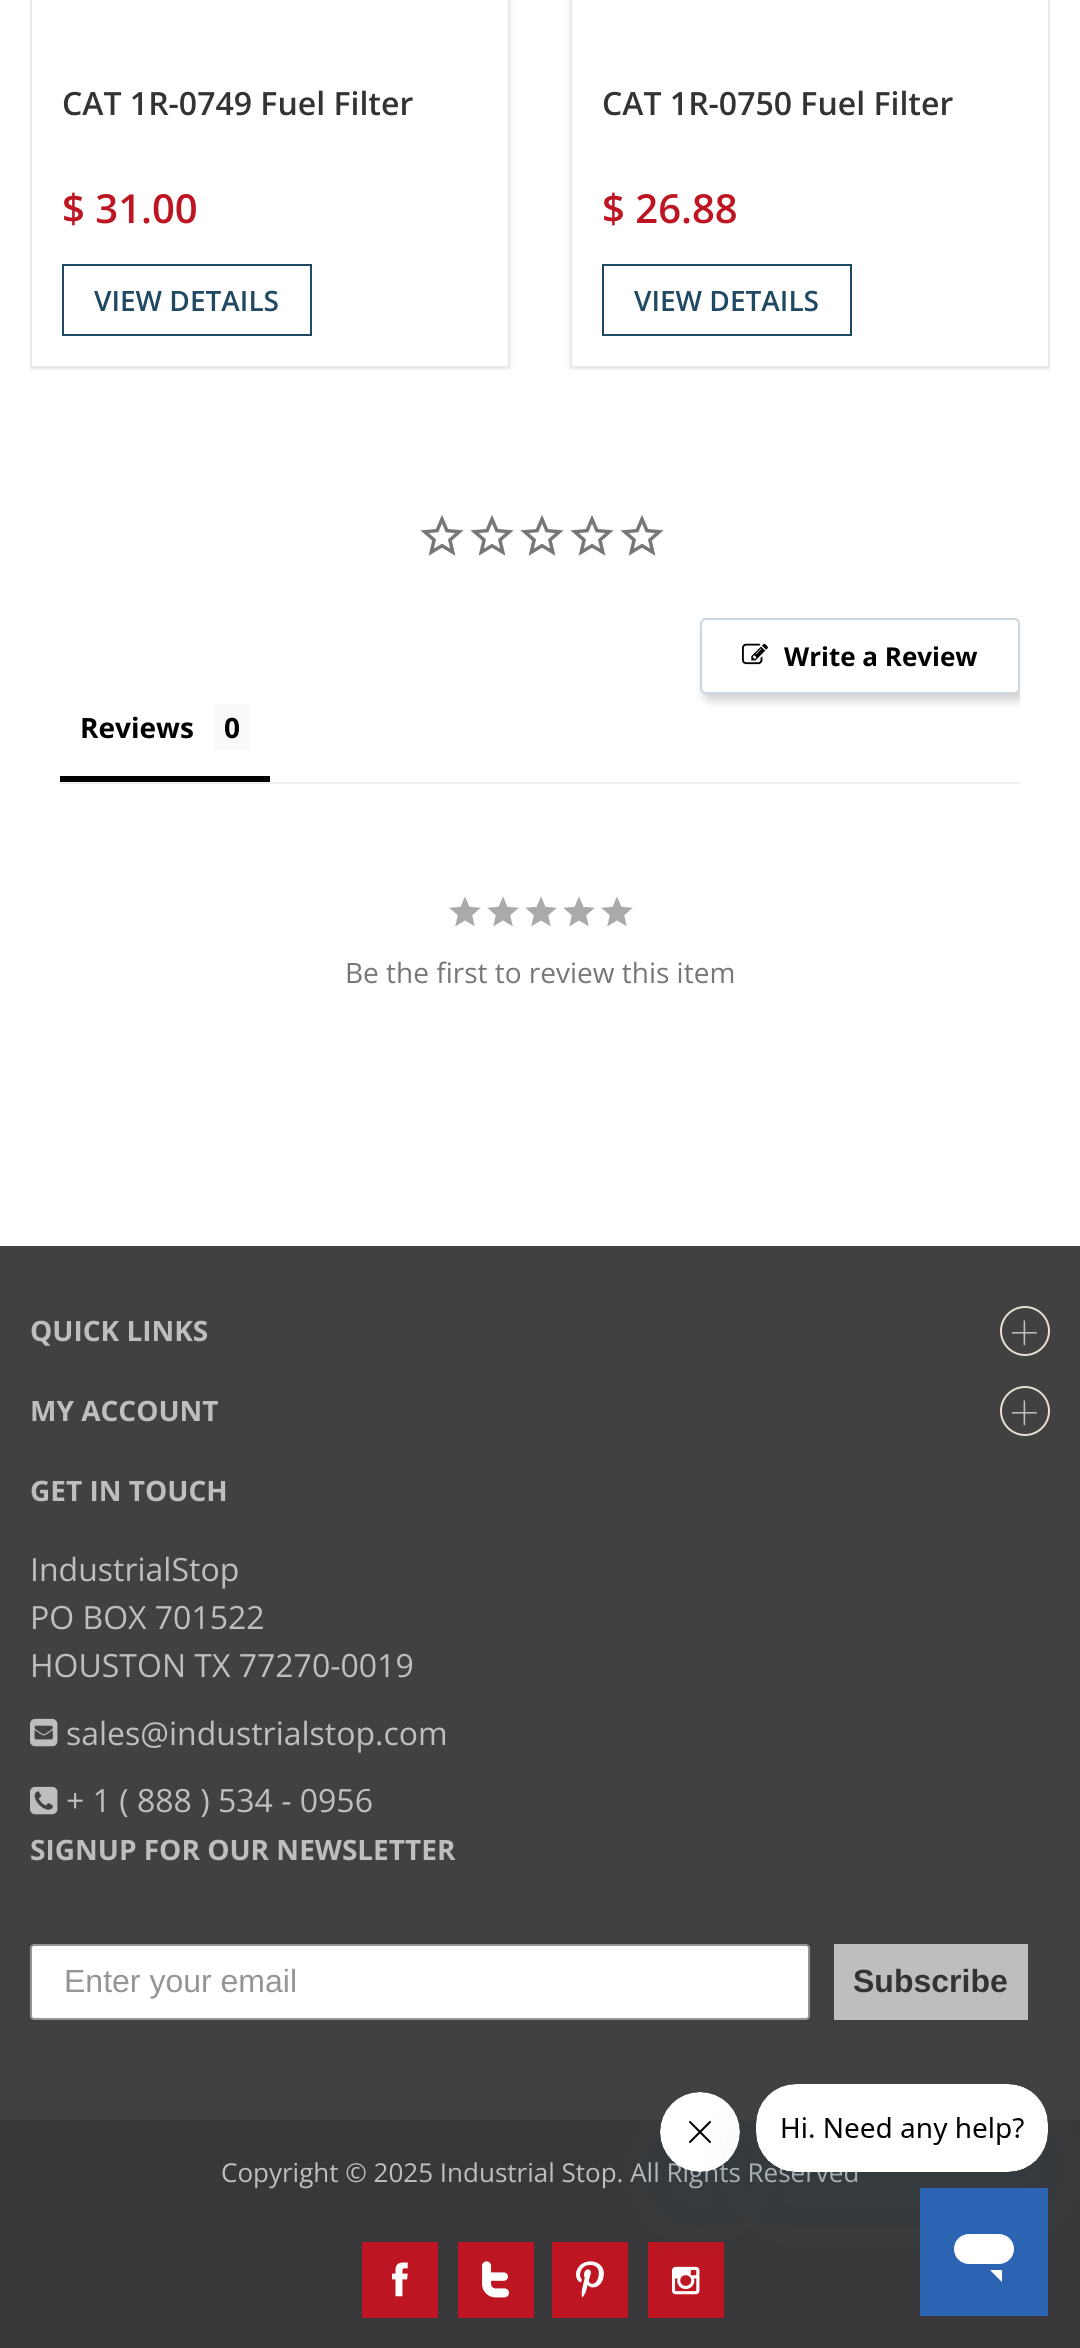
import math
import cairo

surface = cairo.ImageSurface(cairo.FORMAT_RGB24, 1080, 2348)
ctx = cairo.Context(surface)
options = cairo.FontOptions()
options.set_hint_metrics(cairo.HINT_METRICS_OFF)
options.set_hint_style(cairo.HINT_STYLE_NONE)
ctx.set_font_options(options)
ctx.set_miter_limit(4)


def round_rect(x, y, w, h, r):
    ctx.new_sub_path()
    for i, (u, v) in enumerate([(x + w - r, y + h - r), (x + r, y + h - r), (x + r, y + r), (x + w - r, y + r)]):
        ctx.arc(u, v, r, i * math.pi / 2, (i + 1) * math.pi / 2)
    ctx.close_path()


def shadow(x, y, w, h, r, blur, alpha):
    ctx.push_group_with_content(cairo.CONTENT_ALPHA)
    ctx.set_operator(cairo.OPERATOR_SOURCE)
    for i in range(15, -16, -2):
        e = blur * i / 6
        if min(w, h) + 2 * e > 0:
            ctx.set_source_rgba(0, 0, 0, alpha * math.erfc((i - 1) / 8.5) / 2)
            round_rect(x - e, y - e, w + 2 * e, h + 2 * e, max(0, min(r + e + blur * .6, min(w, h) / 2 + e)))
            ctx.fill()
    ctx.mask(ctx.pop_group())


def picture(path, x, y, w, h):
    ctx.save()
    ctx.set_source_surface(cairo.ImageSurface.create_from_png(path), x, y)
    ctx.rectangle(x, y, w, h)
    ctx.fill()
    ctx.restore()


ctx.set_source_rgb(1, 1, 1)
ctx.paint()
ctx.save()
ctx.rectangle(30, 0, 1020, 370)
ctx.clip()
ctx.set_fill_rule(cairo.FILL_RULE_EVEN_ODD)
ctx.new_path()
ctx.move_to(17, 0)
ctx.line_to(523, 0)
ctx.line_to(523, 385)
ctx.line_to(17, 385)
ctx.close_path()
ctx.move_to(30, -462)
ctx.line_to(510, -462)
ctx.line_to(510, 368)
ctx.line_to(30, 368)
ctx.close_path()
ctx.clip()
ctx.set_source_rgb(0.247, 0.263, 0.275)
shadow(30, -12, 480, 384, 0, 4, 0.1)
ctx.restore()
ctx.rectangle(31, -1, 478, 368)
ctx.set_source_rgb(0.906, 0.91, 0.914)
ctx.stroke()
ctx.select_font_face("Open Sans SemiBold")
ctx.set_font_size(32)
ctx.set_source_rgb(0.2, 0.2, 0.2)
ctx.move_to(62, 115)
ctx.show_text("CAT 1R-0749 Fuel Filter")
ctx.set_font_size(40)
ctx.set_source_rgb(0.741, 0.086, 0.133)
ctx.move_to(62, 223)
ctx.show_text("$ 31.00")
ctx.rectangle(63, 265, 248, 70)
ctx.set_source_rgb(0.122, 0.286, 0.384)
ctx.stroke()
ctx.set_font_size(28)
ctx.move_to(94, 311)
ctx.show_text("VIEW DETAILS")
ctx.save()
ctx.rectangle(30, 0, 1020, 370)
ctx.clip()
ctx.set_fill_rule(cairo.FILL_RULE_EVEN_ODD)
ctx.new_path()
ctx.move_to(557, 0)
ctx.line_to(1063, 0)
ctx.line_to(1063, 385)
ctx.line_to(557, 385)
ctx.close_path()
ctx.move_to(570, -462)
ctx.line_to(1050, -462)
ctx.line_to(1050, 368)
ctx.line_to(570, 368)
ctx.close_path()
ctx.clip()
ctx.set_source_rgb(0.247, 0.263, 0.275)
shadow(570, -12, 480, 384, 0, 4, 0.1)
ctx.restore()
ctx.rectangle(571, -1, 478, 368)
ctx.set_source_rgb(0.906, 0.91, 0.914)
ctx.stroke()
ctx.set_font_size(32)
ctx.set_source_rgb(0.2, 0.2, 0.2)
ctx.move_to(602, 115)
ctx.show_text("CAT 1R-0750 Fuel Filter")
ctx.set_font_size(40)
ctx.set_source_rgb(0.741, 0.086, 0.133)
ctx.move_to(602, 223)
ctx.show_text("$ 26.88")
ctx.rectangle(603, 265, 248, 70)
ctx.set_source_rgb(0.122, 0.286, 0.384)
ctx.stroke()
ctx.set_font_size(28)
ctx.move_to(634, 311)
ctx.show_text("VIEW DETAILS")
picture("img1.png", 420, 515, 44, 41)
picture("img1.png", 470, 515, 44, 41)
picture("img1.png", 520, 515, 44, 41)
picture("img1.png", 570, 515, 44, 41)
picture("img1.png", 620, 515, 44, 41)
ctx.save()
ctx.rectangle(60, 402, 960, 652)
ctx.clip()
ctx.set_fill_rule(cairo.FILL_RULE_EVEN_ODD)
ctx.new_path()
ctx.move_to(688, 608)
ctx.line_to(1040, 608)
ctx.line_to(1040, 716)
ctx.line_to(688, 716)
ctx.close_path()
ctx.move_to(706, 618)
ctx.line_to(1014, 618)
ctx.curve_to(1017.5, 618, 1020, 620.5, 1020, 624)
ctx.line_to(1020, 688)
ctx.curve_to(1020, 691.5, 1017.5, 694, 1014, 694)
ctx.line_to(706, 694)
ctx.curve_to(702.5, 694, 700, 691.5, 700, 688)
ctx.line_to(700, 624)
ctx.curve_to(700, 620.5, 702.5, 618, 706, 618)
ctx.close_path()
ctx.clip()
ctx.set_source_rgb(0.533, 0.533, 0.533)
shadow(704, 624, 320, 76, 6, 5, 0.42)
ctx.restore()
round_rect(701, 619, 318, 74, 5)
ctx.set_source_rgb(0.8, 0.839, 0.878)
ctx.stroke()
picture("img2.png", 742, 643, 26, 22)
ctx.select_font_face("Open Sans", cairo.FONT_SLANT_NORMAL, cairo.FONT_WEIGHT_BOLD)
ctx.set_font_size(26)
ctx.set_source_rgb(0, 0, 0)
ctx.move_to(784, 666)
ctx.show_text("Write a Review")
ctx.set_source_rgb(0.933, 0.933, 0.933)
ctx.rectangle(60, 782, 960, 2)
ctx.fill()
ctx.set_source_rgb(0, 0, 0)
ctx.rectangle(60, 776, 210, 6)
ctx.fill()
ctx.set_font_size(28)
ctx.move_to(80, 738)
ctx.show_text("Reviews")
ctx.set_source_rgb(0.973, 0.976, 0.98)
ctx.rectangle(214, 704, 36, 46)
ctx.fill()
ctx.set_source_rgb(0, 0, 0)
ctx.move_to(224, 738)
ctx.show_text("0")
picture("img3.png", 449, 896, 184, 31)
ctx.select_font_face("Open Sans")
ctx.set_source_rgb(0.467, 0.467, 0.467)
ctx.move_to(345, 983)
ctx.show_text("Be the first to review this item")
ctx.set_source_rgb(0.255, 0.255, 0.259)
ctx.rectangle(0, 1246, 1080, 874)
ctx.fill()
ctx.select_font_face("Open Sans", cairo.FONT_SLANT_NORMAL, cairo.FONT_WEIGHT_BOLD)
ctx.set_source_rgb(0.737, 0.745, 0.753)
ctx.move_to(30, 1341)
ctx.show_text("QUICK LINKS")
ctx.new_path()
ctx.arc(1025, 1331, 24, 0, 2 * math.pi)
ctx.set_source_rgb(0.902, 0.875, 0.82)
ctx.stroke()
picture("img4.png", 1012, 1320, 25, 26)
ctx.set_source_rgb(0.737, 0.745, 0.753)
ctx.move_to(30, 1421)
ctx.show_text("MY ACCOUNT")
ctx.new_path()
ctx.arc(1025, 1411, 24, 0, 2 * math.pi)
ctx.set_source_rgb(0.902, 0.875, 0.82)
ctx.stroke()
picture("img4.png", 1012, 1400, 25, 26)
ctx.set_source_rgb(0.737, 0.745, 0.753)
ctx.move_to(30, 1501)
ctx.show_text("GET IN TOUCH")
ctx.select_font_face("Open Sans")
ctx.set_font_size(32)
ctx.move_to(30, 1581)
ctx.show_text("IndustrialStop")
ctx.move_to(30, 1629)
ctx.show_text("PO BOX 701522")
ctx.move_to(30, 1677)
ctx.show_text("HOUSTON TX 77270-0019")
picture("img5.png", 30, 1718, 28, 29)
ctx.move_to(66, 1745)
ctx.show_text("sales@industrialstop.com")
picture("img6.png", 30, 1786, 28, 29)
ctx.move_to(66, 1812)
ctx.show_text("+ 1 ( 888 ) 534 - 0956")
ctx.select_font_face("Open Sans", cairo.FONT_SLANT_NORMAL, cairo.FONT_WEIGHT_BOLD)
ctx.set_font_size(28)
ctx.move_to(30, 1860)
ctx.show_text("SIGNUP FOR OUR NEWSLETTER")
ctx.set_source_rgb(1, 1, 1)
round_rect(31, 1945, 778, 74, 3)
ctx.fill_preserve()
ctx.set_source_rgb(0.58, 0.584, 0.588)
ctx.stroke()
ctx.select_font_face("Liberation Sans")
ctx.set_font_size(32)
ctx.move_to(64, 1992)
ctx.show_text("Enter your email")
ctx.set_source_rgb(0.737, 0.745, 0.753)
ctx.rectangle(834, 1944, 194, 76)
ctx.fill()
ctx.select_font_face("Liberation Sans", cairo.FONT_SLANT_NORMAL, cairo.FONT_WEIGHT_BOLD)
ctx.set_source_rgb(0.2, 0.2, 0.2)
ctx.move_to(853, 1992)
ctx.show_text("Subscribe")
ctx.set_source_rgb(0.22, 0.22, 0.227)
ctx.rectangle(0, 2120, 1080, 228)
ctx.fill()
ctx.select_font_face("Open Sans")
ctx.set_font_size(26)
ctx.set_source_rgb(0.737, 0.745, 0.753)
ctx.move_to(221, 2182)
ctx.show_text("Copyright © 2025 Industrial Stop. All Rights Reserved")
ctx.set_source_rgb(0.741, 0.086, 0.133)
ctx.rectangle(362, 2242, 76, 76)
ctx.fill()
picture("img7.png", 392, 2262, 16, 35)
ctx.rectangle(458, 2242, 76, 76)
ctx.fill()
picture("img8.png", 482, 2261, 27, 37)
ctx.rectangle(552, 2242, 76, 76)
ctx.fill()
picture("img9.png", 576, 2261, 28, 37)
ctx.rectangle(648, 2242, 76, 76)
ctx.fill()
picture("img10.png", 672, 2266, 28, 29)
ctx.set_source_rgb(0.09, 0.286, 0.302)
shadow(660, 2132, 80, 80, 40, 30, 0.15)
picture("img12.png", 660, 2092, 80, 80)
shadow(756, 2124, 292, 88, 40, 30, 0.15)
picture("img11.png", 756, 2084, 292, 88)
picture("img13.png", 920, 2188, 128, 128)
surface.write_to_png("page.png")
